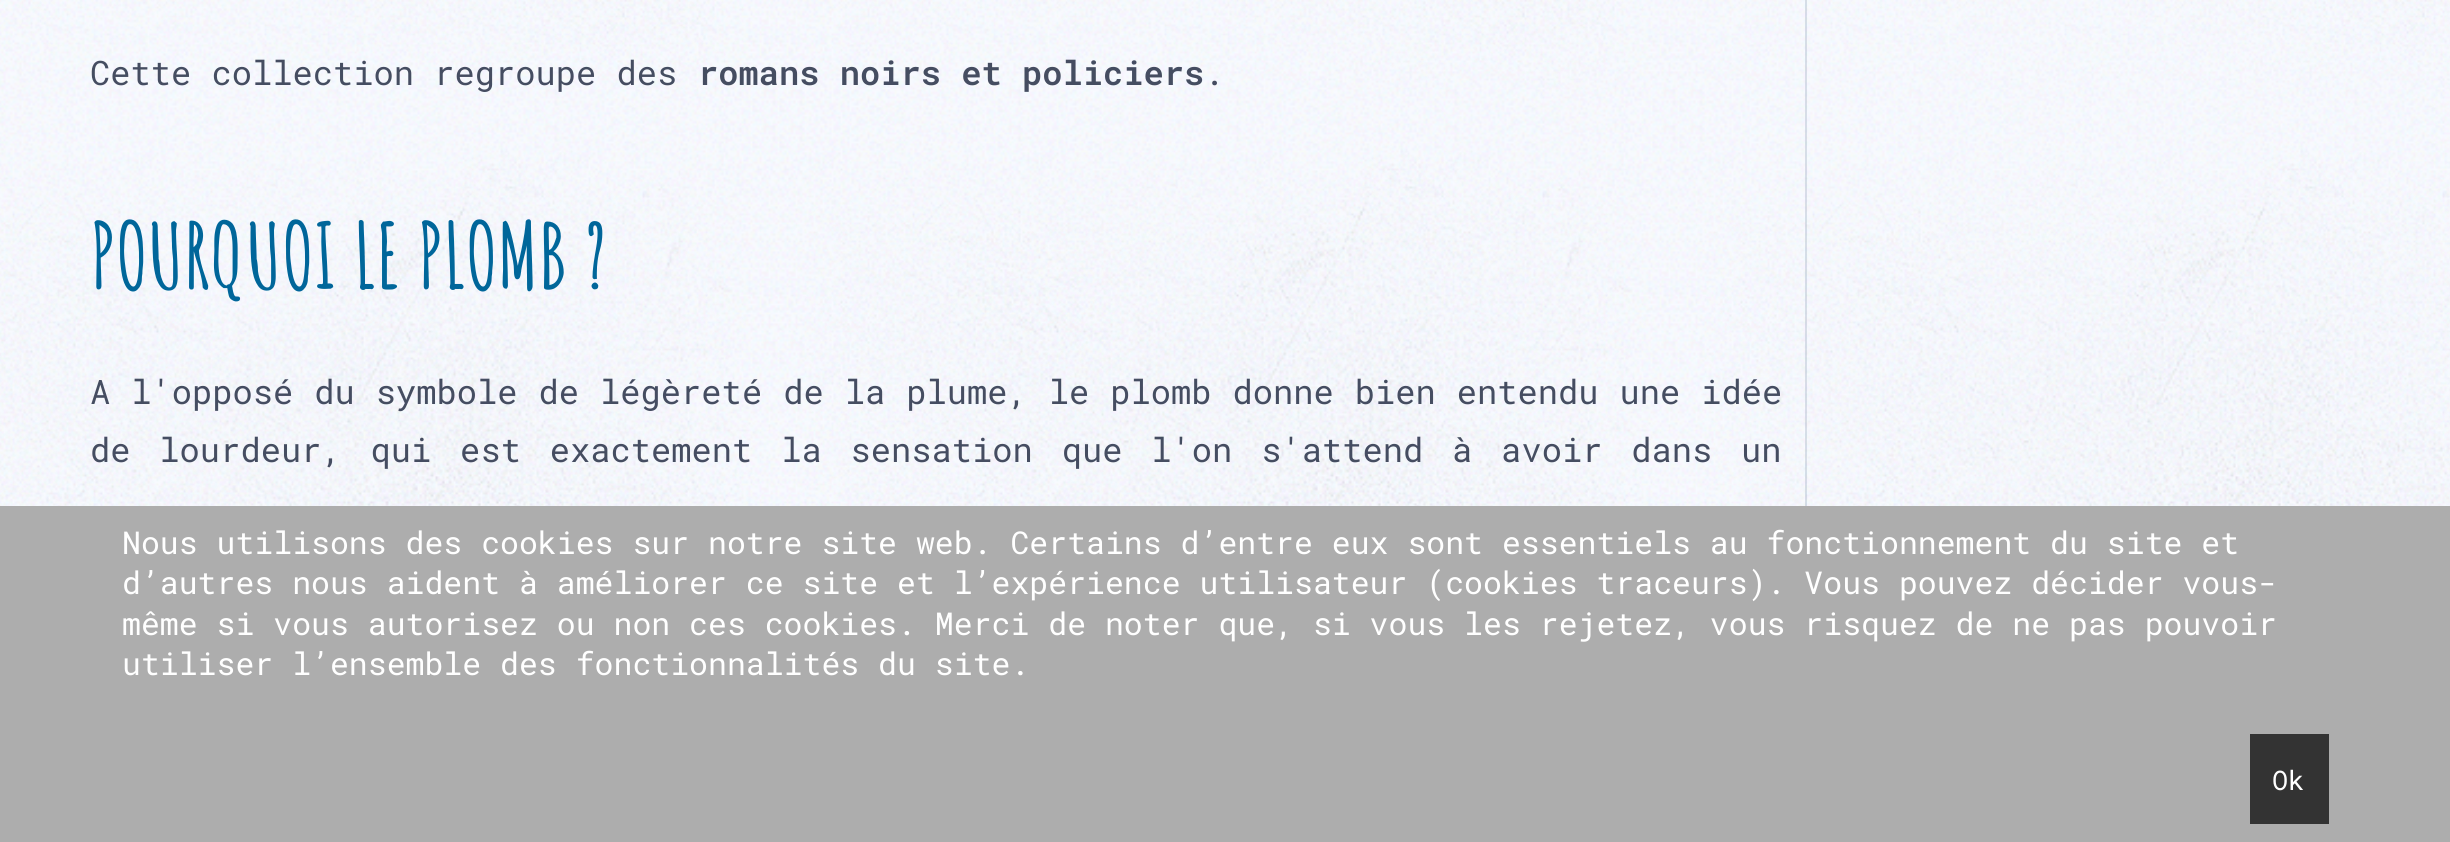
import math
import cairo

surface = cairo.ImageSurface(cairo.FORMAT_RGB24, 2450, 842)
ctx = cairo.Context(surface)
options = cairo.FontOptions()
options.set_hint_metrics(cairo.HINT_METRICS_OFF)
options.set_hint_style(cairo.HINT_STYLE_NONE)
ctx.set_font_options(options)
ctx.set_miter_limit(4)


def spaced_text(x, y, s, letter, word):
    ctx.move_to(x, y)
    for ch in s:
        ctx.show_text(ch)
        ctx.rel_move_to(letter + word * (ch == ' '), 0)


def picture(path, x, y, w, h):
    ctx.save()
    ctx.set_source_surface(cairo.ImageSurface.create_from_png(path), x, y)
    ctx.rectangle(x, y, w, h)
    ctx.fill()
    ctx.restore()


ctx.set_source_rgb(0.969, 0.98, 1)
ctx.paint()
picture("img1.png", 0, 0, 2450, 506)
ctx.select_font_face("Roboto Mono")
ctx.set_font_size(33.75)
ctx.set_source_rgb(0.271, 0.302, 0.38)
ctx.move_to(90, 85)
ctx.show_text("Cette collection regroupe des")
ctx.select_font_face("Roboto Mono SemiBold")
ctx.move_to(698, 85)
ctx.show_text("romans noirs et policiers")
ctx.select_font_face("Roboto Mono")
ctx.move_to(1204, 85)
ctx.show_text(".")
ctx.select_font_face("Amatic SC", cairo.FONT_SLANT_NORMAL, cairo.FONT_WEIGHT_BOLD)
ctx.set_font_size(90)
ctx.set_source_rgb(0, 0.4, 0.604)
ctx.move_to(90, 289)
ctx.show_text("POURQUOI LE PLOMB ?")
ctx.select_font_face("Roboto Mono")
ctx.set_font_size(33.75)
ctx.set_source_rgb(0.271, 0.302, 0.38)
spaced_text(90, 404, "A l'opposé du symbole de légèreté de la plume, le plomb donne bien entendu une idée", 0, 0.75)
spaced_text(90, 462, "de lourdeur, qui est exactement la sensation que l'on s'attend à avoir dans un", 0, 8.6)
ctx.set_source_rgba(0.553, 0.616, 0.71, 0.3)
ctx.rectangle(1805, 0, 2, 506)
ctx.fill()
ctx.set_source_rgb(0.678, 0.678, 0.678)
ctx.rectangle(0, 506, 2450, 336)
ctx.fill()
ctx.set_font_size(31.5)
ctx.set_source_rgb(1, 1, 1)
ctx.move_to(122, 554)
ctx.show_text("Nous utilisons des cookies sur notre site web. Certains d’entre eux sont essentiels au fonctionnement du site et")
ctx.move_to(122, 594)
ctx.show_text("d’autres nous aident à améliorer ce site et l’expérience utilisateur (cookies traceurs). Vous pouvez décider vous-")
ctx.move_to(122, 635)
ctx.show_text("même si vous autorisez ou non ces cookies. Merci de noter que, si vous les rejetez, vous risquez de ne pas pouvoir")
ctx.move_to(122, 675)
ctx.show_text("utiliser l’ensemble des fonctionnalités du site.")
ctx.set_source_rgb(0.2, 0.2, 0.2)
ctx.rectangle(2250, 734, 79, 90)
ctx.fill()
ctx.set_font_size(27)
ctx.set_source_rgb(1, 1, 1)
ctx.move_to(2272, 790)
ctx.show_text("Ok")
surface.write_to_png("page.png")
